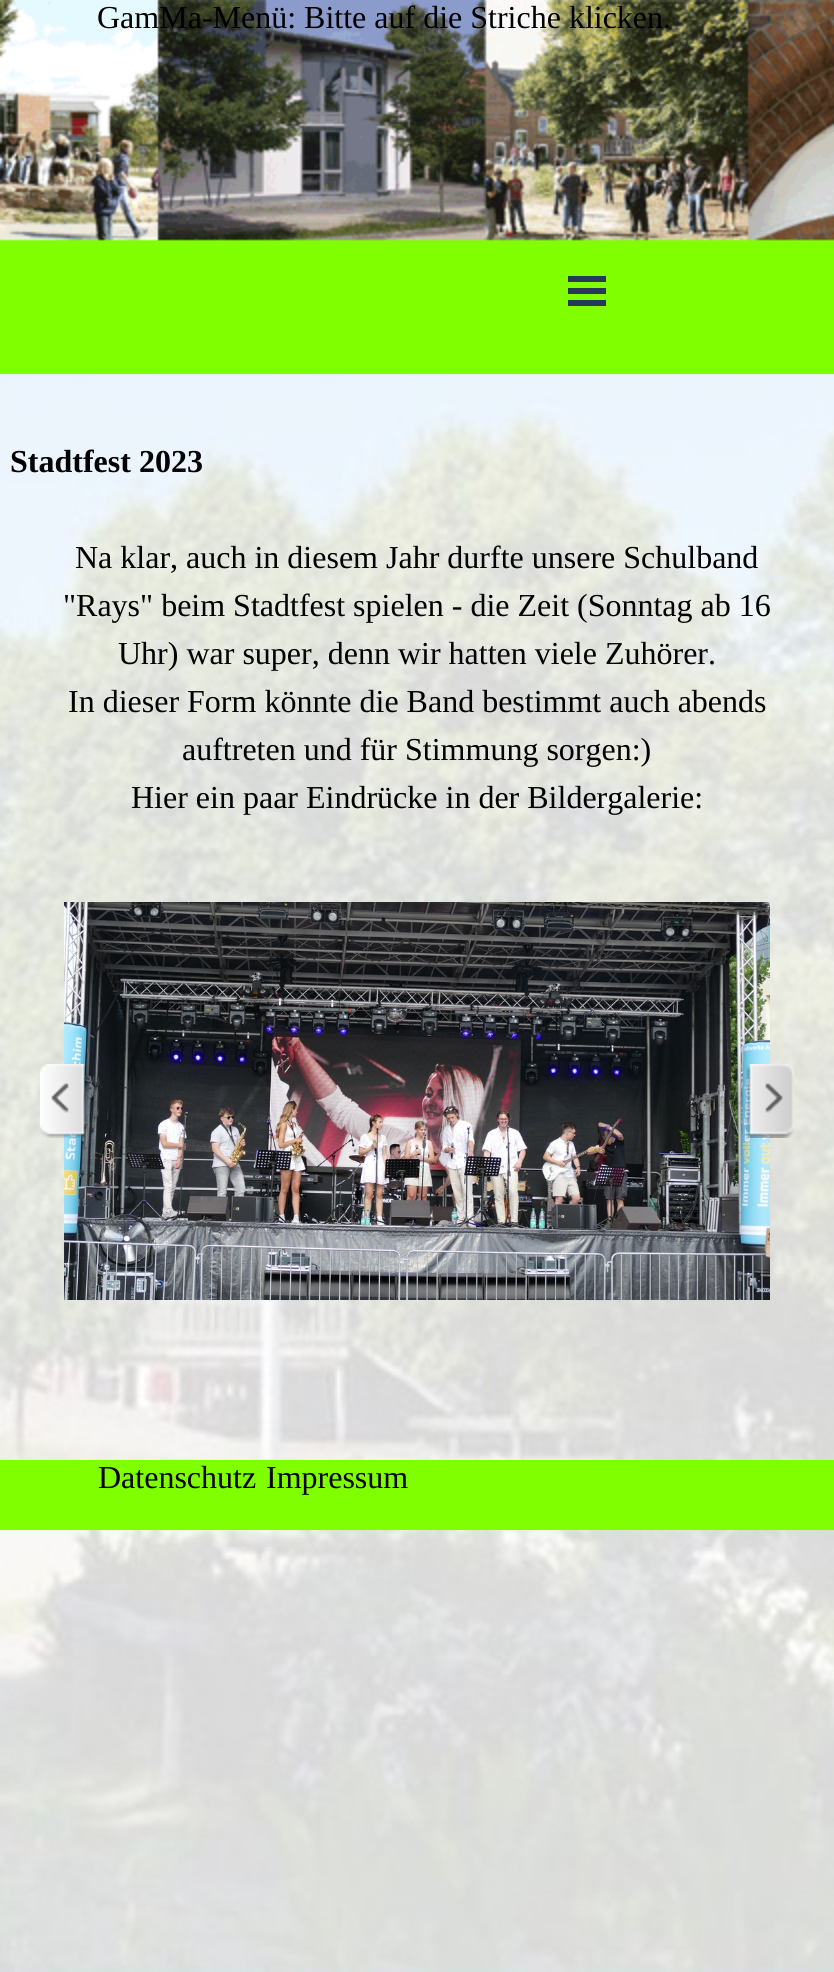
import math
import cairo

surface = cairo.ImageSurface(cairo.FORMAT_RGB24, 834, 1972)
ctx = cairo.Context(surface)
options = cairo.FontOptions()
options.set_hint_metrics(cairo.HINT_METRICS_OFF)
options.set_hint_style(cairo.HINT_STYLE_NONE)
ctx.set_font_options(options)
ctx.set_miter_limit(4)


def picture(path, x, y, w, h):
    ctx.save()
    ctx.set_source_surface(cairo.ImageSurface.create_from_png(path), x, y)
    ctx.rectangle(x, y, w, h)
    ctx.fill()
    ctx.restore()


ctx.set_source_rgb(1, 1, 1)
ctx.paint()
picture("img1.png", 0, 374, 834, 1598)
picture("img2.png", 0, 0, 834, 374)
ctx.select_font_face("Liberation Serif")
ctx.set_font_size(32)
ctx.set_source_rgb(0, 0, 0)
ctx.move_to(97, 28)
ctx.show_text("GamMa-Menü: Bitte auf die Striche klicken.")
ctx.set_source_rgb(0.145, 0.227, 0.345)
ctx.rectangle(568, 276, 38, 6)
ctx.fill()
ctx.rectangle(568, 288, 38, 6)
ctx.fill()
ctx.rectangle(568, 300, 38, 6)
ctx.fill()
ctx.select_font_face("Liberation Serif", cairo.FONT_SLANT_NORMAL, cairo.FONT_WEIGHT_BOLD)
ctx.set_source_rgb(0, 0, 0)
ctx.move_to(10, 472)
ctx.show_text("Stadtfest 2023")
ctx.select_font_face("Liberation Serif")
ctx.move_to(75, 568)
ctx.show_text("Na klar, auch in diesem Jahr durfte unsere Schulband")
ctx.move_to(63, 616)
ctx.show_text("\"Rays\" beim Stadtfest spielen - die Zeit (Sonntag ab 16")
ctx.move_to(118, 664)
ctx.show_text("Uhr) war super, denn wir hatten viele Zuhörer.")
ctx.move_to(68, 712)
ctx.show_text("In dieser Form könnte die Band bestimmt auch abends")
ctx.move_to(182, 760)
ctx.show_text("auftreten und für Stimmung sorgen:)")
ctx.move_to(131, 808)
ctx.show_text("Hier ein paar Eindrücke in der Bildergalerie:")
picture("img3.png", 64, 902, 706, 398)
picture("img4.png", 40, 1064, 48, 74)
picture("img5.png", 746, 1064, 48, 74)
ctx.set_source_rgb(0.502, 1, 0)
ctx.rectangle(0, 1460, 834, 70)
ctx.fill()
ctx.set_source_rgb(0, 0, 0)
ctx.move_to(98, 1488)
ctx.show_text("Datenschutz")
ctx.move_to(266, 1488)
ctx.show_text("Impressum")
surface.write_to_png("page.png")
